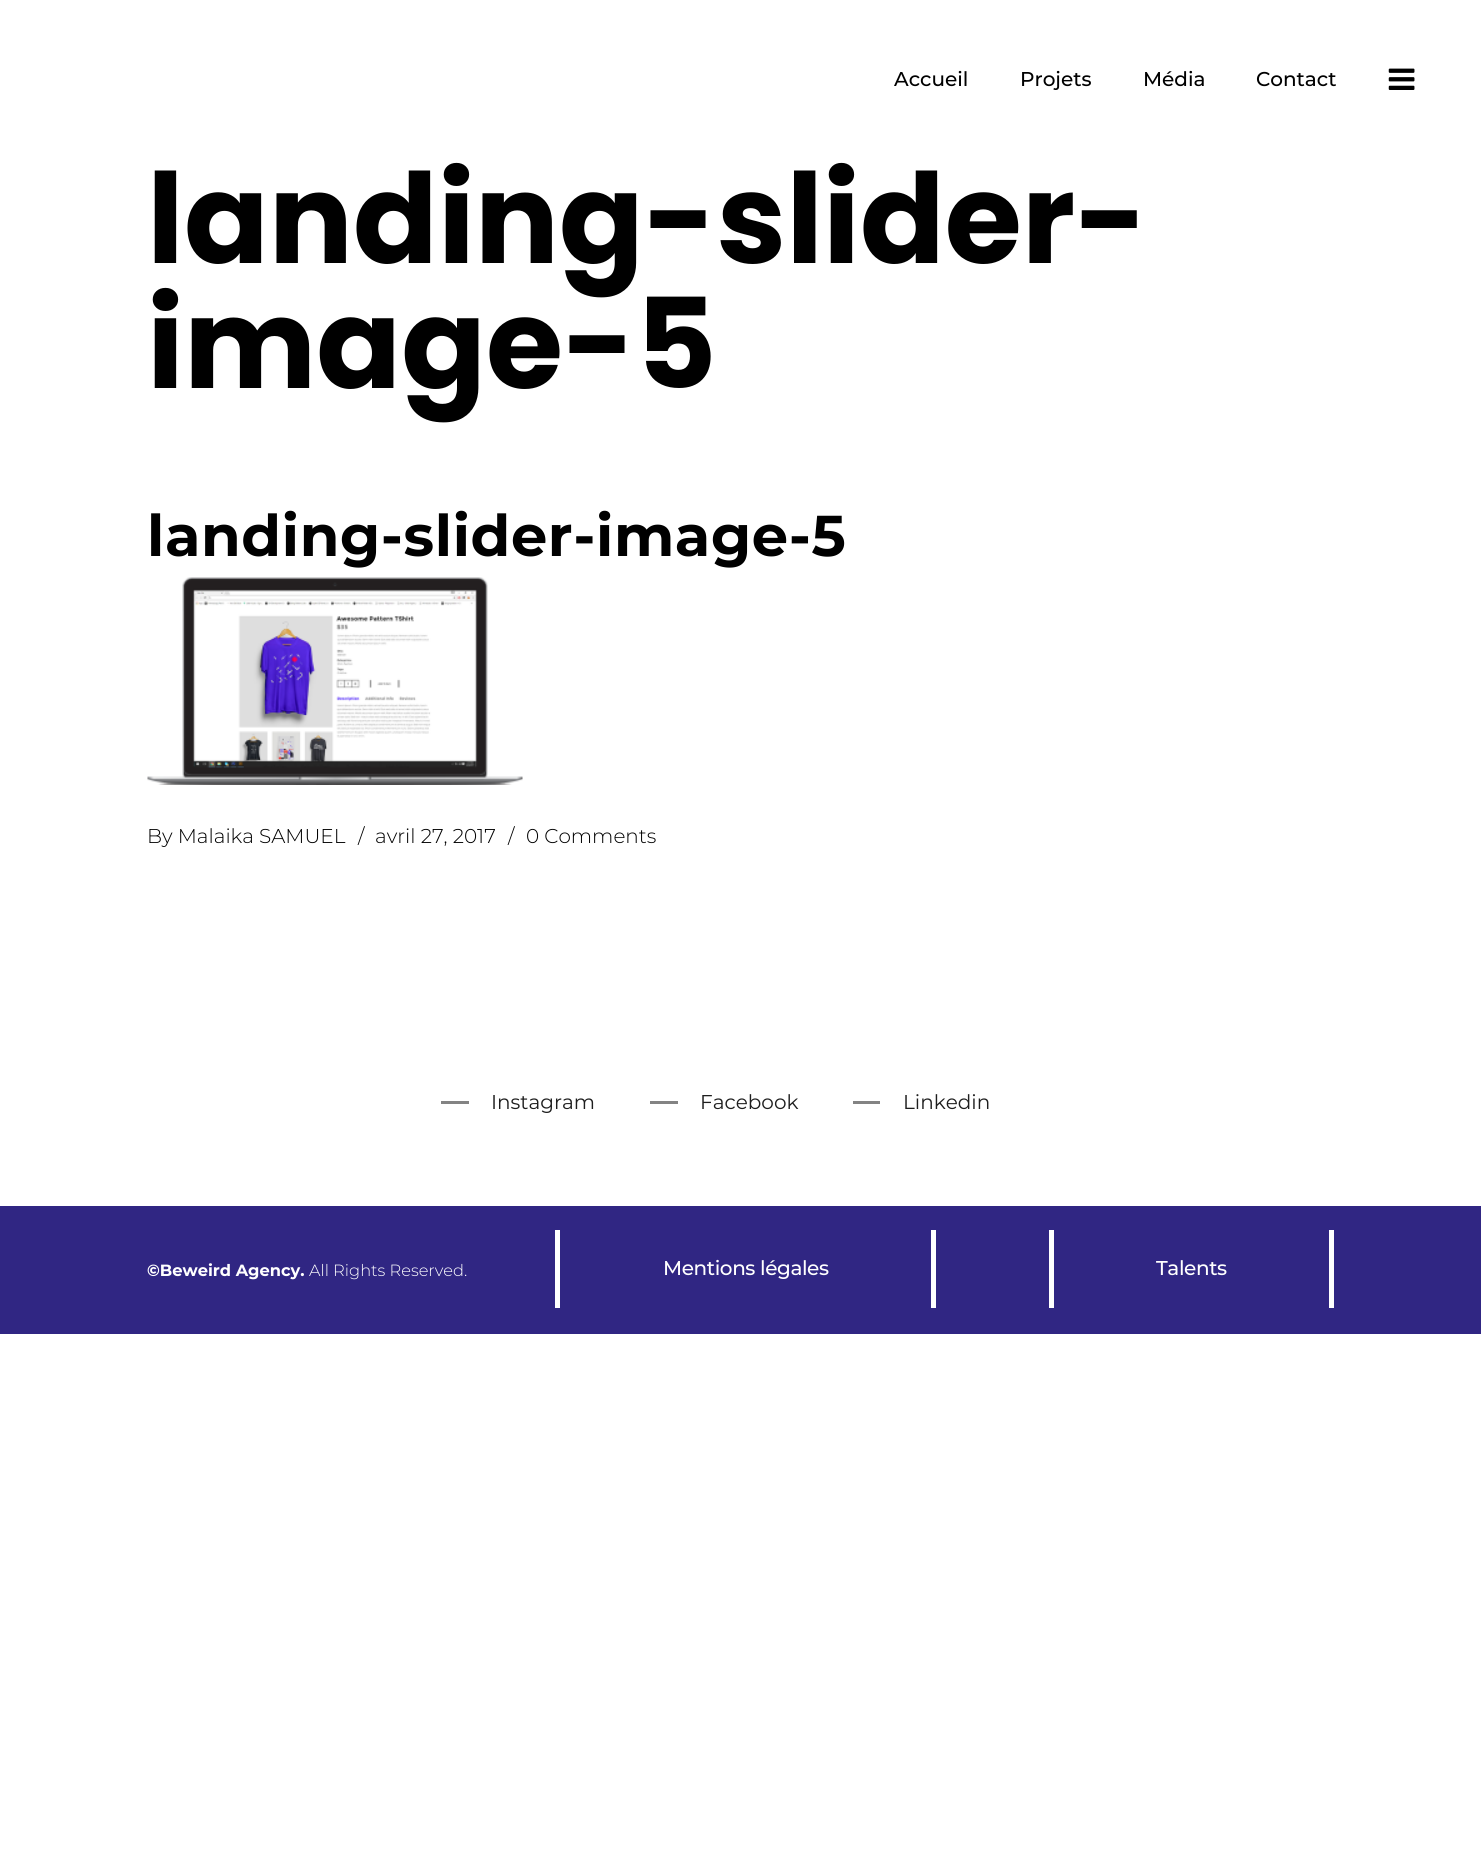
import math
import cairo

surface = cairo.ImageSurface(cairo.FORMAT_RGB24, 1481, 1873)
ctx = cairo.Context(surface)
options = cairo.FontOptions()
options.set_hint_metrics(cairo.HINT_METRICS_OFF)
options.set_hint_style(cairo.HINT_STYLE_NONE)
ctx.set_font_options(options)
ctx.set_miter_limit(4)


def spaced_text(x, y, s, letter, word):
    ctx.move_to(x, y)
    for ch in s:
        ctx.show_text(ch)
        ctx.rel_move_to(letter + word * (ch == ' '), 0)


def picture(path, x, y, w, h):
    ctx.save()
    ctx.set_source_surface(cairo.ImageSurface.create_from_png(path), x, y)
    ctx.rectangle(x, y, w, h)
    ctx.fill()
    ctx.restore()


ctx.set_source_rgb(1, 1, 1)
ctx.paint()
ctx.select_font_face("Montserrat Medium")
ctx.set_font_size(20)
ctx.set_source_rgb(0, 0, 0)
ctx.move_to(894, 86)
ctx.show_text("Accueil")
ctx.move_to(1020, 86)
ctx.show_text("Projets")
ctx.move_to(1143, 86)
ctx.show_text("Média")
ctx.move_to(1256, 86)
ctx.show_text("Contact")
picture("img1.png", 1388, 68, 27, 22)
ctx.select_font_face("Poppins", cairo.FONT_SLANT_NORMAL, cairo.FONT_WEIGHT_BOLD)
ctx.set_font_size(125)
ctx.move_to(147, 263)
ctx.show_text("landing-slider-")
ctx.move_to(147, 388)
ctx.show_text("image-5")
ctx.select_font_face("Montserrat", cairo.FONT_SLANT_NORMAL, cairo.FONT_WEIGHT_BOLD)
ctx.set_font_size(57.5)
spaced_text(147, 556, "landing-slider-image-5", 0.6, 0)
picture("img2.png", 147, 577, 376, 208)
ctx.select_font_face("Montserrat Light")
ctx.set_font_size(20)
ctx.move_to(147, 843)
ctx.show_text("By Malaika SAMUEL")
ctx.move_to(358, 843)
ctx.show_text("/")
ctx.move_to(375, 843)
ctx.show_text("avril 27, 2017")
ctx.move_to(508, 843)
ctx.show_text("/")
ctx.move_to(526, 843)
ctx.show_text("0 Comments")
ctx.set_source_rgb(0.514, 0.514, 0.514)
ctx.rectangle(441, 1101, 28, 3)
ctx.fill()
ctx.select_font_face("Montserrat")
ctx.set_source_rgb(0.118, 0.118, 0.118)
ctx.move_to(491, 1109)
ctx.show_text("Instagram")
ctx.set_source_rgb(0.514, 0.514, 0.514)
ctx.rectangle(650, 1101, 28, 3)
ctx.fill()
ctx.set_source_rgb(0.118, 0.118, 0.118)
ctx.move_to(700, 1109)
ctx.show_text("Facebook")
ctx.set_source_rgb(0.514, 0.514, 0.514)
ctx.rectangle(853, 1101, 27, 3)
ctx.fill()
ctx.set_source_rgb(0.118, 0.118, 0.118)
ctx.move_to(903, 1109)
ctx.show_text("Linkedin")
ctx.set_source_rgb(0.188, 0.149, 0.514)
ctx.rectangle(0, 1206, 1481, 128)
ctx.fill()
ctx.select_font_face("Montserrat", cairo.FONT_SLANT_NORMAL, cairo.FONT_WEIGHT_BOLD)
ctx.set_font_size(16.25)
ctx.set_source_rgb(1, 1, 1)
ctx.move_to(147, 1276)
ctx.show_text("©Beweird Agency.")
ctx.select_font_face("Montserrat Light")
ctx.move_to(309, 1276)
ctx.show_text("All Rights Reserved.")
ctx.rectangle(555, 1230, 5, 78)
ctx.fill()
ctx.select_font_face("Montserrat Medium")
ctx.set_font_size(20)
spaced_text(663, 1275, "Mentions légales", -0.4, 0)
ctx.rectangle(931, 1230, 5, 78)
ctx.fill()
ctx.rectangle(1049, 1230, 5, 78)
ctx.fill()
spaced_text(1156, 1275, "Talents", -0.4, 0)
ctx.rectangle(1329, 1230, 5, 78)
ctx.fill()
surface.write_to_png("page.png")
